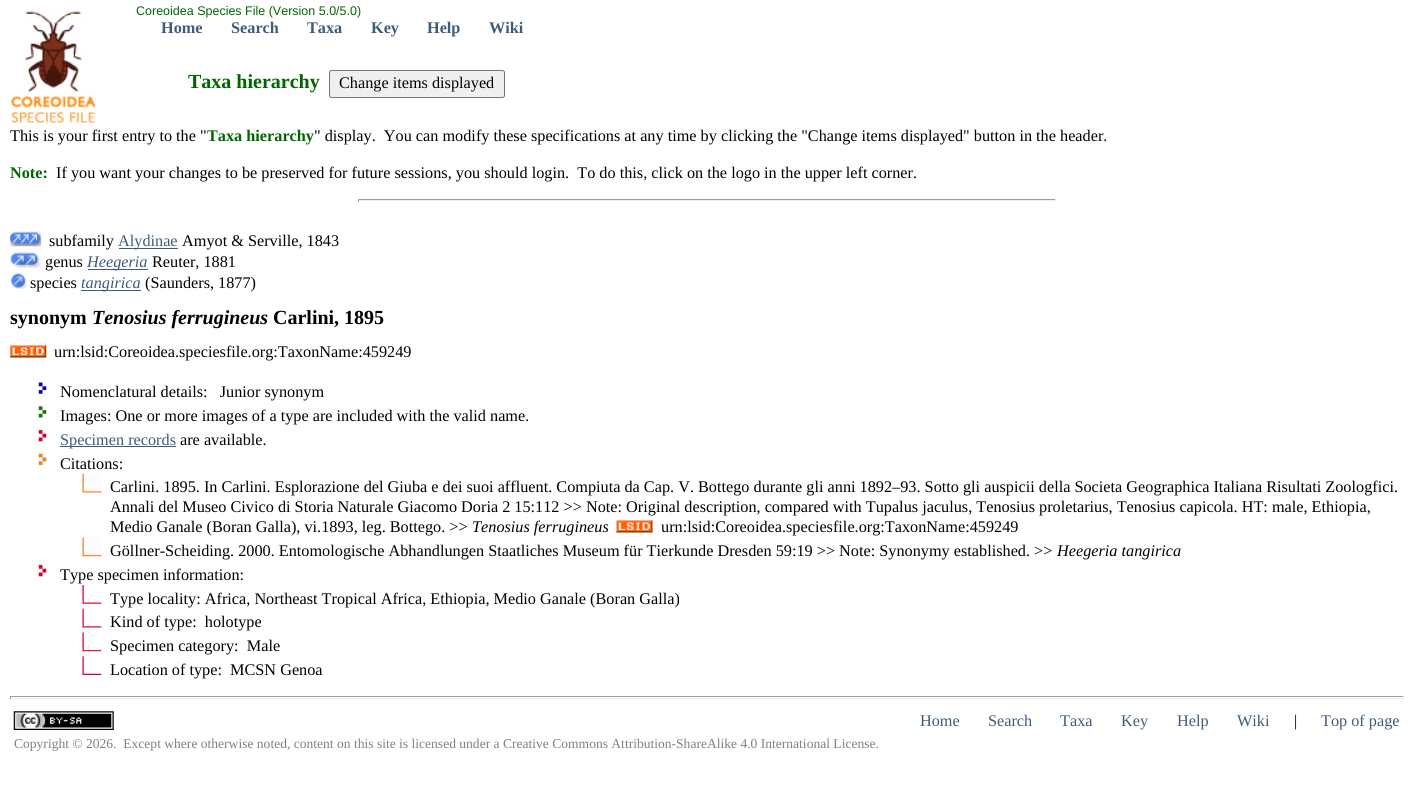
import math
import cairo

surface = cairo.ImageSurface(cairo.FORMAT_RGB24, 1413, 811)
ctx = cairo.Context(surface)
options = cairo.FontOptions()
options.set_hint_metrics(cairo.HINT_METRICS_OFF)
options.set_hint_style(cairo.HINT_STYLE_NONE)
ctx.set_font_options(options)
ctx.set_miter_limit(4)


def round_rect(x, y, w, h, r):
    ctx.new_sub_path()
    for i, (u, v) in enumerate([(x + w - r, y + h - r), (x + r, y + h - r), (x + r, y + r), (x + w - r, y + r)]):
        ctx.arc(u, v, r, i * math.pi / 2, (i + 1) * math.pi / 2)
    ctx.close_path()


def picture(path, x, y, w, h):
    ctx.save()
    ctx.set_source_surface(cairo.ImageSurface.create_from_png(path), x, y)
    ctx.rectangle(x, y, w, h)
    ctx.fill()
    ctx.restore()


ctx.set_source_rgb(1, 1, 1)
ctx.paint()
picture("img1.png", 11, 11, 86, 112)
ctx.select_font_face("Liberation Sans")
ctx.set_font_size(12.5)
ctx.set_source_rgb(0, 0.4, 0)
ctx.move_to(136, 15)
ctx.show_text("Coreoidea Species File (Version 5.0/5.0)")
ctx.select_font_face("Liberation Serif", cairo.FONT_SLANT_NORMAL, cairo.FONT_WEIGHT_BOLD)
ctx.set_font_size(16.25)
ctx.set_source_rgb(0.239, 0.357, 0.482)
ctx.move_to(161, 33)
ctx.show_text("Home")
ctx.move_to(231, 33)
ctx.show_text("Search")
ctx.move_to(307, 33)
ctx.show_text("Taxa")
ctx.move_to(371, 33)
ctx.show_text("Key")
ctx.move_to(427, 33)
ctx.show_text("Help")
ctx.move_to(489, 33)
ctx.show_text("Wiki")
ctx.set_font_size(20)
ctx.set_source_rgb(0, 0.4, 0)
ctx.move_to(188, 88)
ctx.show_text("Taxa hierarchy")
ctx.set_source_rgb(0.937, 0.937, 0.937)
round_rect(329.5, 70.5, 175, 27, 2)
ctx.fill_preserve()
ctx.set_source_rgb(0.463, 0.463, 0.463)
ctx.set_line_width(1)
ctx.stroke()
ctx.select_font_face("Liberation Serif")
ctx.set_font_size(16.25)
ctx.set_source_rgb(0, 0, 0)
ctx.move_to(339, 88)
ctx.show_text("Change items displayed")
ctx.move_to(10, 141)
ctx.show_text("This is your first entry to the \"")
ctx.select_font_face("Liberation Serif", cairo.FONT_SLANT_NORMAL, cairo.FONT_WEIGHT_BOLD)
ctx.set_source_rgb(0, 0.4, 0)
ctx.move_to(207, 141)
ctx.show_text("Taxa hierarchy")
ctx.select_font_face("Liberation Serif")
ctx.set_source_rgb(0, 0, 0)
ctx.move_to(314, 141)
ctx.show_text("\" display.  You can modify these specifications at any time by clicking the \"Change items displayed\" button in the header.")
ctx.select_font_face("Liberation Serif", cairo.FONT_SLANT_NORMAL, cairo.FONT_WEIGHT_BOLD)
ctx.set_source_rgb(0, 0.4, 0)
ctx.move_to(10, 178)
ctx.show_text("Note:")
ctx.select_font_face("Liberation Serif")
ctx.set_source_rgb(0, 0, 0)
ctx.move_to(56, 178)
ctx.show_text("If you want your changes to be preserved for future sessions, you should login.  To do this, click on the logo in the upper left corner.")
ctx.set_source_rgb(0.624, 0.624, 0.624)
ctx.rectangle(358, 199, 698, 1)
ctx.fill()
ctx.set_source_rgb(0.933, 0.933, 0.933)
ctx.rectangle(1055, 199, 1, 3)
ctx.fill()
ctx.rectangle(358, 200, 698, 1)
ctx.fill()
ctx.set_source_rgb(0.624, 0.624, 0.624)
ctx.rectangle(358, 199, 1, 3)
ctx.fill()
picture("img2.png", 10, 231, 32, 16)
ctx.set_source_rgb(0, 0, 0)
ctx.move_to(49, 246)
ctx.show_text("subfamily")
ctx.set_source_rgb(0.239, 0.357, 0.482)
ctx.rectangle(119, 248, 59, 1)
ctx.fill()
ctx.move_to(118, 246)
ctx.show_text("Alydinae")
ctx.set_source_rgb(0, 0, 0)
ctx.move_to(182, 246)
ctx.show_text("Amyot & Serville, 1843")
picture("img3.png", 10, 252, 31, 16)
ctx.move_to(45, 267)
ctx.show_text("genus")
ctx.set_source_rgb(0.239, 0.357, 0.482)
ctx.rectangle(88, 269, 60, 1)
ctx.fill()
ctx.select_font_face("Liberation Serif", cairo.FONT_SLANT_ITALIC)
ctx.move_to(87, 267)
ctx.show_text("Heegeria")
ctx.select_font_face("Liberation Serif")
ctx.set_source_rgb(0, 0, 0)
ctx.move_to(152, 267)
ctx.show_text("Reuter, 1881")
picture("img4.png", 11, 273, 16, 16)
ctx.move_to(30, 288)
ctx.show_text("species")
ctx.set_source_rgb(0.239, 0.357, 0.482)
ctx.rectangle(81, 290, 60, 1)
ctx.fill()
ctx.select_font_face("Liberation Serif", cairo.FONT_SLANT_ITALIC)
ctx.move_to(81, 288)
ctx.show_text("tangirica")
ctx.select_font_face("Liberation Serif")
ctx.set_source_rgb(0, 0, 0)
ctx.move_to(145, 288)
ctx.show_text("(Saunders, 1877)")
ctx.select_font_face("Liberation Serif", cairo.FONT_SLANT_NORMAL, cairo.FONT_WEIGHT_BOLD)
ctx.set_font_size(20)
ctx.move_to(10, 324)
ctx.show_text("synonym")
ctx.select_font_face("Liberation Serif", cairo.FONT_SLANT_ITALIC, cairo.FONT_WEIGHT_BOLD)
ctx.move_to(92, 324)
ctx.show_text("Tenosius ferrugineus")
ctx.select_font_face("Liberation Serif", cairo.FONT_SLANT_NORMAL, cairo.FONT_WEIGHT_BOLD)
ctx.move_to(273, 324)
ctx.show_text("Carlini, 1895")
picture("img5.png", 10, 345, 37, 13)
ctx.select_font_face("Liberation Serif")
ctx.set_font_size(16.25)
ctx.move_to(54, 357)
ctx.show_text("urn:lsid:Coreoidea.speciesfile.org:TaxonName:459249")
picture("img6.png", 38, 382, 9, 12)
ctx.move_to(60, 397)
ctx.show_text("Nomenclatural details:   Junior synonym")
picture("img7.png", 38, 406, 9, 12)
ctx.move_to(60, 421)
ctx.show_text("Images: One or more images of a type are included with the valid name.")
picture("img8.png", 38, 429, 9, 13)
ctx.set_source_rgb(0.239, 0.357, 0.482)
ctx.rectangle(60, 446, 116, 1)
ctx.fill()
ctx.move_to(60, 445)
ctx.show_text("Specimen records")
ctx.set_source_rgb(0, 0, 0)
ctx.move_to(180, 445)
ctx.show_text("are available.")
picture("img9.png", 38, 453, 9, 13)
ctx.move_to(60, 469)
ctx.show_text("Citations:")
picture("img10.png", 82, 473, 20, 20)
ctx.move_to(110, 492)
ctx.show_text("Carlini. 1895. In Carlini. Esplorazione del Giuba e dei suoi affluent. Compiuta da Cap. V. Bottego durante gli anni 1892–93. Sotto gli auspicii della Societa Geographica Italiana Risultati Zoologfici.")
ctx.move_to(110, 512)
ctx.show_text("Annali del Museo Civico di Storia Naturale Giacomo Doria 2 15:112 >> Note: Original description, compared with Tupalus jaculus, Tenosius proletarius, Tenosius capicola. HT: male, Ethiopia,")
ctx.move_to(110, 532)
ctx.show_text("Medio Ganale (Boran Galla), vi.1893, leg. Bottego. >>")
ctx.select_font_face("Liberation Serif", cairo.FONT_SLANT_ITALIC)
ctx.move_to(472, 532)
ctx.show_text("Tenosius ferrugineus")
picture("img11.png", 616, 520, 37, 13)
ctx.select_font_face("Liberation Serif")
ctx.move_to(661, 532)
ctx.show_text("urn:lsid:Coreoidea.speciesfile.org:TaxonName:459249")
picture("img12.png", 82, 537, 20, 20)
ctx.move_to(110, 556)
ctx.show_text("Göllner-Scheiding. 2000. Entomologische Abhandlungen Staatliches Museum für Tierkunde Dresden 59:19 >> Note: Synonymy established. >>")
ctx.select_font_face("Liberation Serif", cairo.FONT_SLANT_ITALIC)
ctx.move_to(1057, 556)
ctx.show_text("Heegeria tangirica")
picture("img8.png", 38, 564, 9, 13)
ctx.select_font_face("Liberation Serif")
ctx.move_to(60, 580)
ctx.show_text("Type specimen information:")
picture("img13.png", 82, 585, 20, 19)
ctx.move_to(110, 604)
ctx.show_text("Type locality: Africa, Northeast Tropical Africa, Ethiopia, Medio Ganale (Boran Galla)")
picture("img14.png", 82, 608, 20, 20)
ctx.move_to(110, 627)
ctx.show_text("Kind of type:  holotype")
picture("img15.png", 82, 632, 20, 20)
ctx.move_to(110, 651)
ctx.show_text("Specimen category:  Male")
picture("img16.png", 82, 656, 20, 19)
ctx.move_to(110, 675)
ctx.show_text("Location of type:  MCSN Genoa")
ctx.set_source_rgb(0.624, 0.624, 0.624)
ctx.rectangle(10, 696, 1394, 1)
ctx.fill()
ctx.set_source_rgb(0.933, 0.933, 0.933)
ctx.rectangle(1403, 696, 1, 3)
ctx.fill()
ctx.rectangle(10, 698, 1394, 1)
ctx.fill()
ctx.set_source_rgb(0.624, 0.624, 0.624)
ctx.rectangle(10, 696, 1, 3)
ctx.fill()
picture("img17.png", 13, 711, 101, 19)
ctx.set_source_rgb(0.239, 0.357, 0.482)
ctx.move_to(920, 726)
ctx.show_text("Home")
ctx.move_to(988, 726)
ctx.show_text("Search")
ctx.move_to(1060, 726)
ctx.show_text("Taxa")
ctx.move_to(1121, 726)
ctx.show_text("Key")
ctx.move_to(1177, 726)
ctx.show_text("Help")
ctx.move_to(1237, 726)
ctx.show_text("Wiki")
ctx.set_source_rgb(0, 0, 0)
ctx.move_to(1294, 726)
ctx.show_text("|")
ctx.set_source_rgb(0.239, 0.357, 0.482)
ctx.move_to(1321, 726)
ctx.show_text("Top of page")
ctx.set_font_size(13.55)
ctx.set_source_rgb(0.502, 0.502, 0.502)
ctx.move_to(14, 748)
ctx.show_text("Copyright © 2026.  Except where otherwise noted, content on this site is licensed under a Creative Commons Attribution-ShareAlike 4.0 International License.")
surface.write_to_png("page.png")
